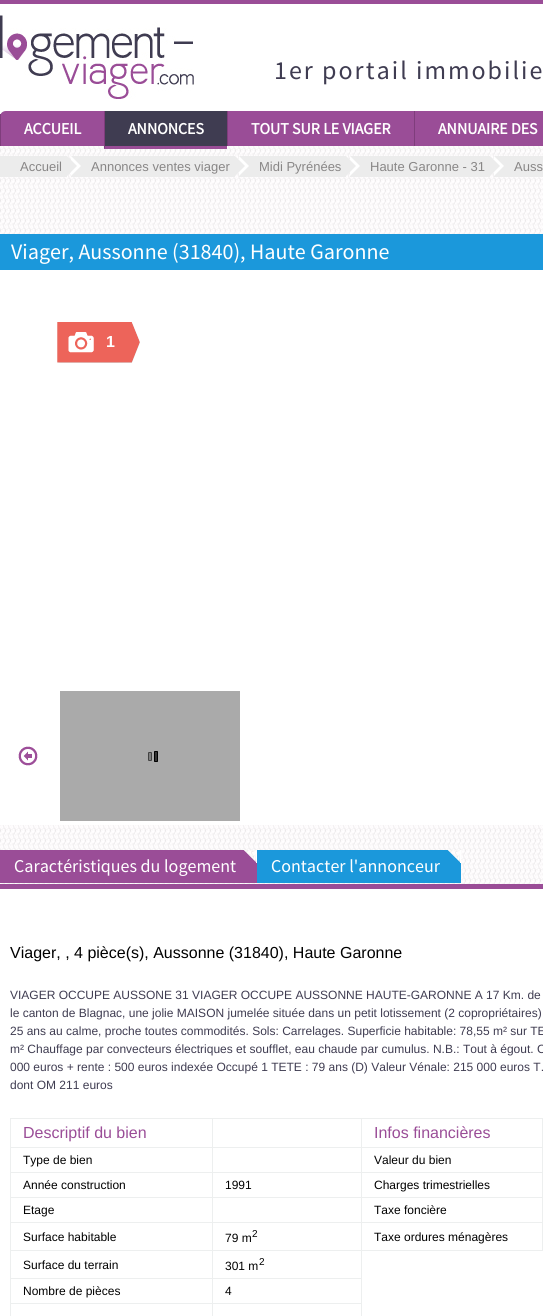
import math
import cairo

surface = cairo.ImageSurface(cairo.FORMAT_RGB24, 543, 1316)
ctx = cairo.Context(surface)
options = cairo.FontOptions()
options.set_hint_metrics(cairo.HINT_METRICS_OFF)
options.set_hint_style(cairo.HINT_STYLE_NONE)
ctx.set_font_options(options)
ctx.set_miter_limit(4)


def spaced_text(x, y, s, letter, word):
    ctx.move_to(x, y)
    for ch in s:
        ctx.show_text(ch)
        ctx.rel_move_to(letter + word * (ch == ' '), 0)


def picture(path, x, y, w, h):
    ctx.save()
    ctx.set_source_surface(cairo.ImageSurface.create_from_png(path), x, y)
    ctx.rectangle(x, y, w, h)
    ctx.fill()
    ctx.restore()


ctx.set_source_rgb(1, 1, 1)
ctx.paint()
picture("img1.png", 0, 146, 543, 738)
picture("img2.png", 0, 0, 543, 114)
picture("img3.png", 0, 15, 194, 84)
ctx.select_font_face("Source Sans Pro")
ctx.set_font_size(26)
ctx.set_source_rgb(0.247, 0.235, 0.318)
spaced_text(274, 79, "1er portail immobilie", 2, 0)
ctx.set_source_rgb(0.604, 0.302, 0.592)
ctx.new_path()
ctx.move_to(6, 111)
ctx.line_to(543, 111)
ctx.curve_to(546.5, 111, 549, 113.5, 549, 117)
ctx.line_to(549, 146)
ctx.line_to(0, 146)
ctx.line_to(0, 117)
ctx.curve_to(0, 113.5, 2.5, 111, 6, 111)
ctx.close_path()
ctx.fill()
ctx.set_source_rgb(0.498, 0.239, 0.486)
ctx.rectangle(0, 114, 1, 32)
ctx.fill()
ctx.select_font_face("Source Sans Pro", cairo.FONT_SLANT_NORMAL, cairo.FONT_WEIGHT_BOLD)
ctx.set_font_size(16)
ctx.set_source_rgb(1, 1, 1)
ctx.move_to(24, 134)
ctx.show_text("ACCUEIL")
ctx.set_source_rgb(0.247, 0.235, 0.318)
ctx.rectangle(104, 111, 123, 38)
ctx.fill()
ctx.set_source_rgb(0.604, 0.302, 0.592)
ctx.new_path()
ctx.move_to(227, 149)
ctx.line_to(104, 149)
ctx.line_to(105, 146)
ctx.line_to(227, 146)
ctx.close_path()
ctx.fill()
ctx.set_source_rgb(0.498, 0.239, 0.486)
ctx.new_path()
ctx.move_to(104, 149)
ctx.line_to(104, 111)
ctx.line_to(105, 111)
ctx.line_to(105, 146)
ctx.close_path()
ctx.fill()
ctx.set_source_rgb(1, 1, 1)
ctx.move_to(128, 134)
ctx.show_text("ANNONCES")
ctx.set_source_rgb(0.498, 0.239, 0.486)
ctx.rectangle(227, 111, 1, 35)
ctx.fill()
ctx.set_source_rgb(1, 1, 1)
ctx.move_to(251, 134)
ctx.show_text("TOUT SUR LE VIAGER")
ctx.set_source_rgb(0.498, 0.239, 0.486)
ctx.rectangle(414, 111, 1, 35)
ctx.fill()
ctx.set_source_rgb(1, 1, 1)
ctx.move_to(438, 134)
ctx.show_text("ANNUAIRE DES")
ctx.set_source_rgb(0.922, 0.922, 0.922)
ctx.rectangle(0, 156, 67, 21)
ctx.fill()
ctx.select_font_face("Liberation Sans")
ctx.set_font_size(13)
ctx.set_source_rgb(0.533, 0.525, 0.525)
ctx.move_to(20, 171)
ctx.show_text("Accueil")
ctx.set_source_rgb(0.922, 0.922, 0.922)
ctx.rectangle(71, 156, 164, 21)
ctx.fill()
ctx.set_source_rgb(1, 1, 1)
ctx.new_path()
ctx.move_to(71, 176)
ctx.line_to(71, 156)
ctx.line_to(81, 166)
ctx.close_path()
ctx.fill()
ctx.set_source_rgb(0.922, 0.922, 0.922)
ctx.new_path()
ctx.move_to(67, 176)
ctx.line_to(67, 156)
ctx.line_to(77, 166)
ctx.close_path()
ctx.fill()
ctx.set_source_rgb(0.533, 0.525, 0.525)
ctx.move_to(91, 171)
ctx.show_text("Annonces ventes viager")
ctx.set_source_rgb(0.922, 0.922, 0.922)
ctx.rectangle(239, 156, 107, 21)
ctx.fill()
ctx.set_source_rgb(1, 1, 1)
ctx.new_path()
ctx.move_to(239, 176)
ctx.line_to(239, 156)
ctx.line_to(249, 166)
ctx.close_path()
ctx.fill()
ctx.set_source_rgb(0.922, 0.922, 0.922)
ctx.new_path()
ctx.move_to(235, 176)
ctx.line_to(235, 156)
ctx.line_to(245, 166)
ctx.close_path()
ctx.fill()
ctx.set_source_rgb(0.533, 0.525, 0.525)
ctx.move_to(259, 171)
ctx.show_text("Midi Pyrénées")
ctx.set_source_rgb(0.922, 0.922, 0.922)
ctx.rectangle(350, 156, 140, 21)
ctx.fill()
ctx.set_source_rgb(1, 1, 1)
ctx.new_path()
ctx.move_to(350, 176)
ctx.line_to(350, 156)
ctx.line_to(360, 166)
ctx.close_path()
ctx.fill()
ctx.set_source_rgb(0.922, 0.922, 0.922)
ctx.new_path()
ctx.move_to(346, 176)
ctx.line_to(346, 156)
ctx.line_to(356, 166)
ctx.close_path()
ctx.fill()
ctx.set_source_rgb(0.533, 0.525, 0.525)
ctx.move_to(370, 171)
ctx.show_text("Haute Garonne - 31")
ctx.set_source_rgb(0.922, 0.922, 0.922)
ctx.rectangle(494, 156, 49, 21)
ctx.fill()
ctx.set_source_rgb(1, 1, 1)
ctx.new_path()
ctx.move_to(494, 176)
ctx.line_to(494, 156)
ctx.line_to(504, 166)
ctx.close_path()
ctx.fill()
ctx.set_source_rgb(0.922, 0.922, 0.922)
ctx.new_path()
ctx.move_to(490, 176)
ctx.line_to(490, 156)
ctx.line_to(500, 166)
ctx.close_path()
ctx.fill()
ctx.set_source_rgb(0.533, 0.525, 0.525)
ctx.move_to(514, 171)
ctx.show_text("Auss")
ctx.set_source_rgb(0.106, 0.596, 0.859)
ctx.rectangle(0, 234, 543, 36)
ctx.fill()
ctx.select_font_face("Source Sans Pro")
ctx.set_font_size(22)
ctx.set_source_rgb(1, 1, 1)
ctx.move_to(11, 259)
ctx.show_text("Viager, Aussonne (31840), Haute Garonne")
ctx.rectangle(0, 270, 543, 555)
ctx.fill()
picture("img4.png", 57, 322, 83, 41)
ctx.select_font_face("Liberation Sans", cairo.FONT_SLANT_NORMAL, cairo.FONT_WEIGHT_BOLD)
ctx.set_font_size(16)
ctx.move_to(106, 347)
ctx.show_text("1")
picture("img5.png", 18, 746, 20, 20)
ctx.set_source_rgb(0.667, 0.667, 0.667)
ctx.rectangle(60, 691, 180, 130)
ctx.fill()
picture("img6.png", 148, 751, 10, 11)
ctx.set_source_rgb(0.604, 0.302, 0.592)
ctx.rectangle(0, 884, 543, 5)
ctx.fill()
ctx.rectangle(0, 850, 257, 33)
ctx.fill()
picture("img7.png", 243, 850, 14, 13)
ctx.set_source_rgb(0.106, 0.596, 0.859)
ctx.rectangle(257, 850, 204, 33)
ctx.fill()
picture("img8.png", 447, 850, 14, 13)
ctx.select_font_face("Source Sans Pro")
ctx.set_font_size(18)
ctx.set_source_rgb(1, 1, 1)
ctx.move_to(14, 872)
ctx.show_text("Caractéristiques du logement")
ctx.move_to(271, 872)
ctx.show_text("Contacter l'annonceur")
ctx.select_font_face("Liberation Sans")
ctx.set_font_size(16)
ctx.set_source_rgb(0, 0, 0)
ctx.move_to(10, 958)
ctx.show_text("Viager, , 4 pièce(s), Aussonne (31840), Haute Garonne")
ctx.set_font_size(12)
ctx.set_source_rgb(0.247, 0.235, 0.318)
ctx.move_to(10, 999)
ctx.show_text("VIAGER OCCUPE AUSSONE 31 VIAGER OCCUPE AUSSONNE HAUTE-GARONNE A 17 Km. de")
ctx.move_to(10, 1017)
ctx.show_text("le canton de Blagnac, une jolie MAISON jumelée située dans un petit lotissement (2 copropriétaires)")
ctx.move_to(10, 1035)
ctx.show_text("25 ans au calme, proche toutes commodités. Sols: Carrelages. Superficie habitable: 78,55 m² sur TE")
ctx.move_to(10, 1053)
ctx.show_text("m² Chauffage par convecteurs électriques et soufflet, eau chaude par cumulus. N.B.: Tout à égout. C")
ctx.move_to(10, 1071)
ctx.show_text("000 euros + rente : 500 euros indexée Occupé 1 TETE : 79 ans (D) Valeur Vénale: 215 000 euros T.")
ctx.move_to(10, 1089)
ctx.show_text("dont OM 211 euros")
ctx.set_source_rgb(0.929, 0.937, 0.937)
ctx.rectangle(10, 1118, 533, 1)
ctx.fill()
ctx.rectangle(10, 1118, 1, 198)
ctx.fill()
ctx.rectangle(212, 1119, 1, 197)
ctx.fill()
ctx.rectangle(11, 1147, 202, 1)
ctx.fill()
ctx.set_font_size(16)
ctx.set_source_rgb(0.604, 0.302, 0.592)
ctx.move_to(23, 1138)
ctx.show_text("Descriptif du bien")
ctx.set_source_rgb(0.929, 0.937, 0.937)
ctx.rectangle(361, 1119, 1, 197)
ctx.fill()
ctx.rectangle(213, 1147, 149, 1)
ctx.fill()
ctx.rectangle(542, 1119, 1, 132)
ctx.fill()
ctx.rectangle(362, 1147, 181, 1)
ctx.fill()
ctx.set_source_rgb(0.604, 0.302, 0.592)
ctx.move_to(374, 1138)
ctx.show_text("Infos financières")
ctx.set_source_rgb(0.929, 0.937, 0.937)
ctx.rectangle(11, 1172, 532, 1)
ctx.fill()
ctx.set_font_size(12)
ctx.set_source_rgb(0, 0, 0)
ctx.move_to(23, 1164)
ctx.show_text("Type de bien")
ctx.move_to(374, 1164)
ctx.show_text("Valeur du bien")
ctx.set_source_rgb(0.929, 0.937, 0.937)
ctx.rectangle(11, 1197, 532, 1)
ctx.fill()
ctx.set_source_rgb(0, 0, 0)
ctx.move_to(23, 1189)
ctx.show_text("Année construction")
ctx.move_to(225, 1189)
ctx.show_text("1991")
ctx.move_to(374, 1189)
ctx.show_text("Charges trimestrielles")
ctx.set_source_rgb(0.929, 0.937, 0.937)
ctx.rectangle(11, 1222, 532, 1)
ctx.fill()
ctx.set_source_rgb(0, 0, 0)
ctx.move_to(23, 1214)
ctx.show_text("Etage")
ctx.move_to(374, 1214)
ctx.show_text("Taxe foncière")
ctx.set_source_rgb(0.929, 0.937, 0.937)
ctx.rectangle(11, 1250, 532, 1)
ctx.fill()
ctx.set_source_rgb(0, 0, 0)
ctx.move_to(23, 1241)
ctx.show_text("Surface habitable")
ctx.move_to(225, 1242)
ctx.show_text("79 m")
ctx.set_font_size(10)
ctx.move_to(252, 1237)
ctx.show_text("2")
ctx.set_font_size(12)
ctx.move_to(374, 1241)
ctx.show_text("Taxe ordures ménagères")
ctx.set_source_rgb(0.929, 0.937, 0.937)
ctx.rectangle(11, 1278, 351, 1)
ctx.fill()
ctx.set_source_rgb(0, 0, 0)
ctx.move_to(23, 1269)
ctx.show_text("Surface du terrain")
ctx.move_to(225, 1270)
ctx.show_text("301 m")
ctx.set_font_size(10)
ctx.move_to(259, 1265)
ctx.show_text("2")
ctx.set_source_rgb(0.929, 0.937, 0.937)
ctx.rectangle(11, 1303, 351, 1)
ctx.fill()
ctx.set_font_size(12)
ctx.set_source_rgb(0, 0, 0)
ctx.move_to(23, 1295)
ctx.show_text("Nombre de pièces")
ctx.move_to(225, 1295)
ctx.show_text("4")
surface.write_to_png("page.png")
